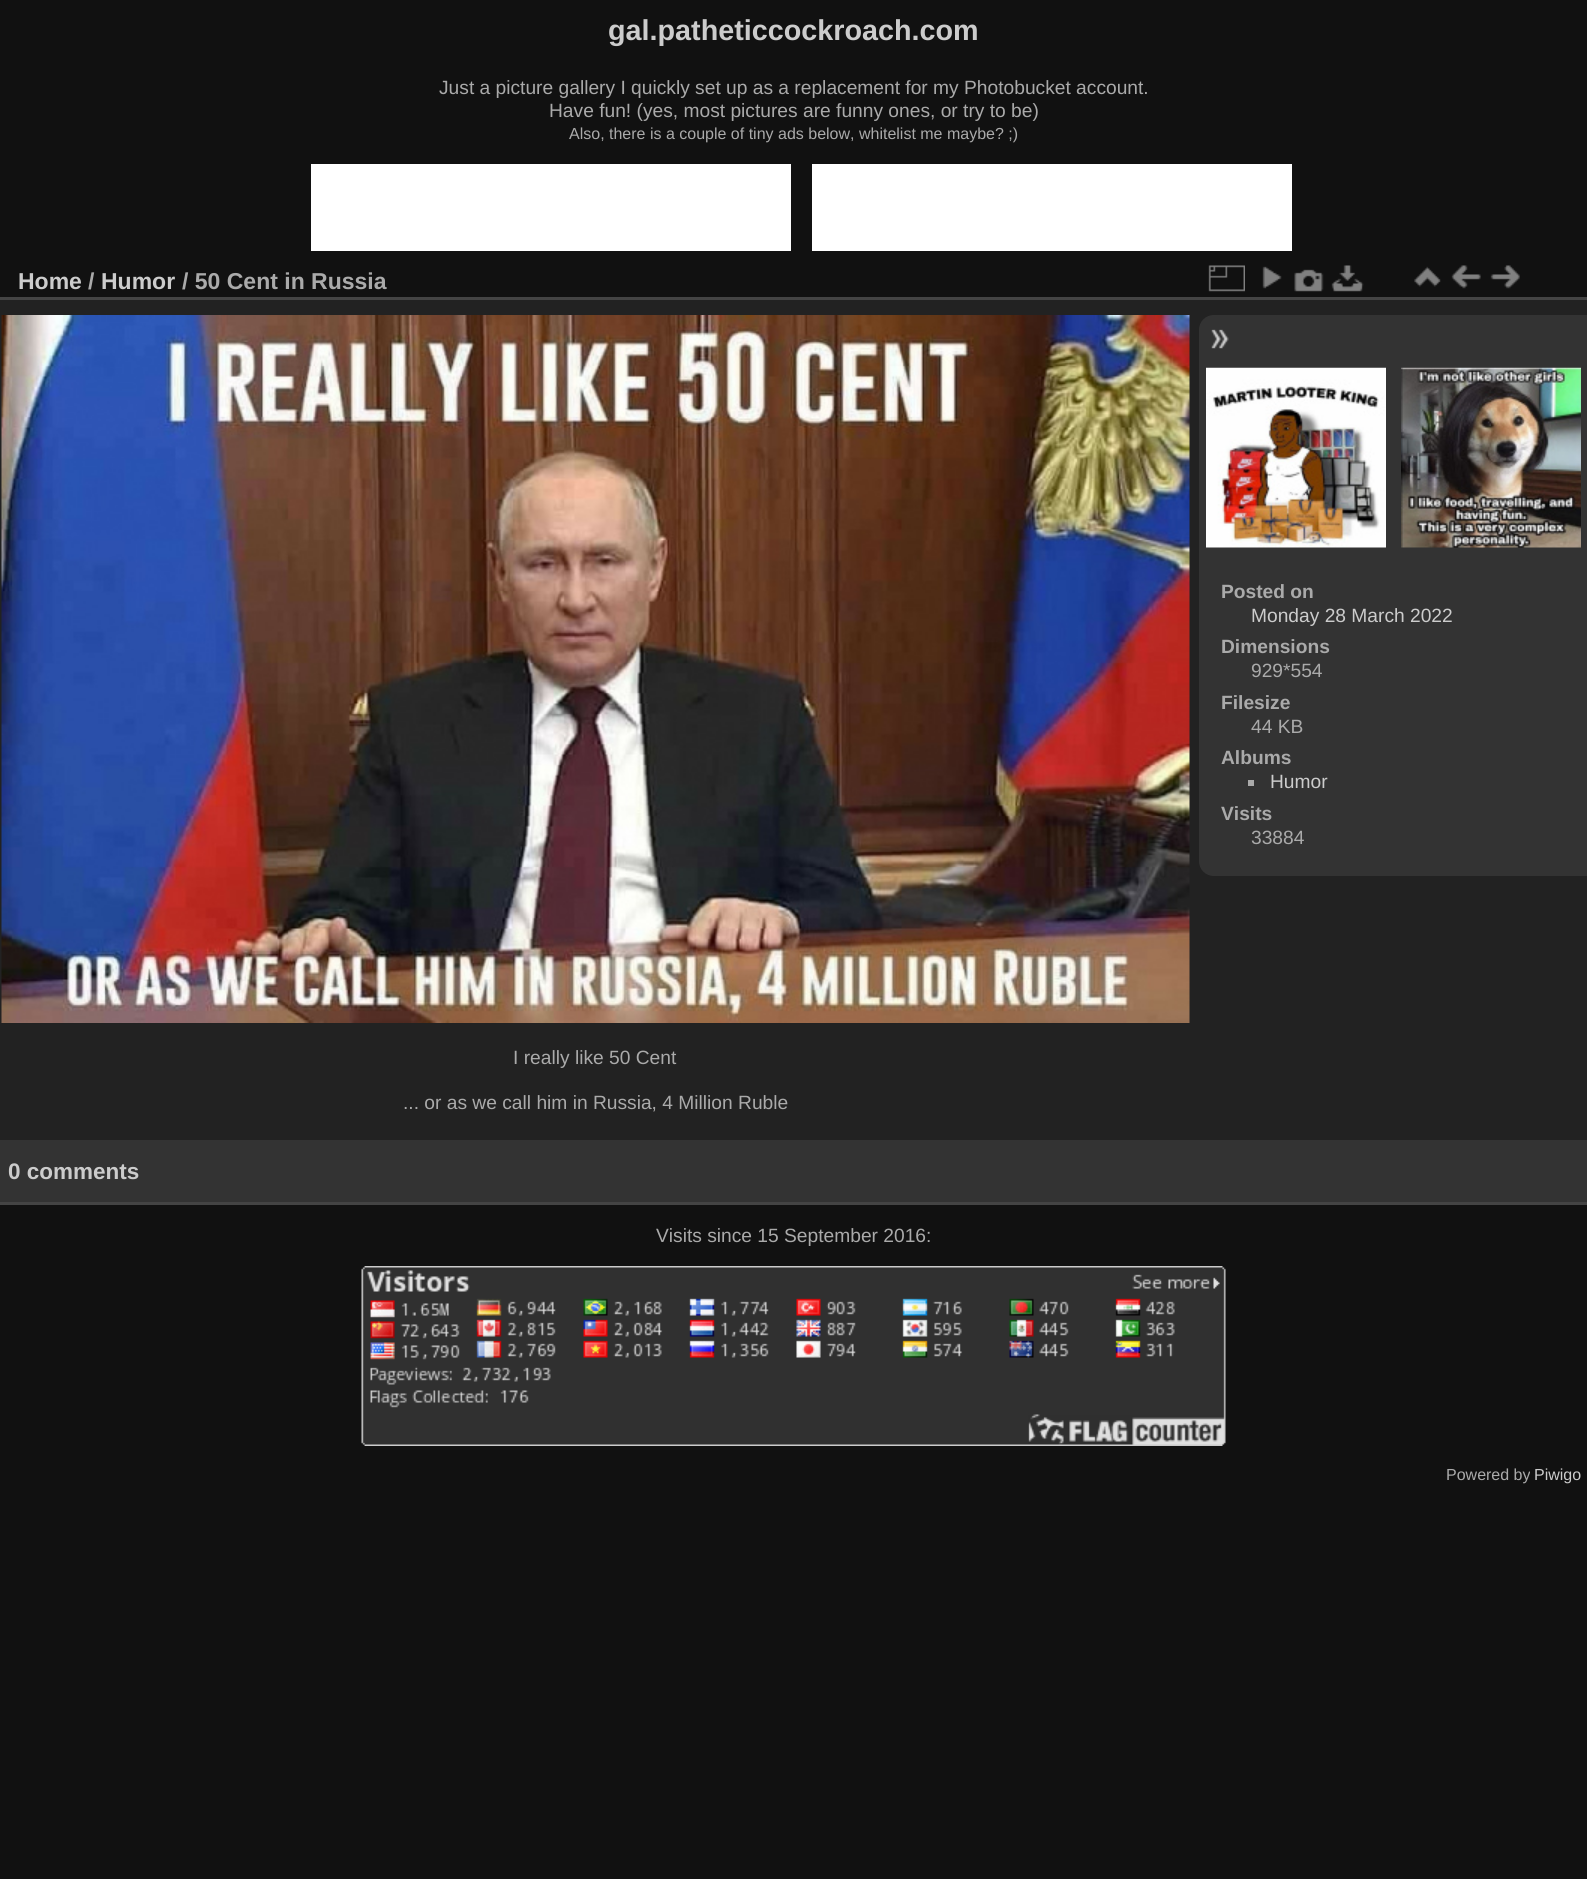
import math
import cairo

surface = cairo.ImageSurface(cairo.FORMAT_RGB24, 1587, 1879)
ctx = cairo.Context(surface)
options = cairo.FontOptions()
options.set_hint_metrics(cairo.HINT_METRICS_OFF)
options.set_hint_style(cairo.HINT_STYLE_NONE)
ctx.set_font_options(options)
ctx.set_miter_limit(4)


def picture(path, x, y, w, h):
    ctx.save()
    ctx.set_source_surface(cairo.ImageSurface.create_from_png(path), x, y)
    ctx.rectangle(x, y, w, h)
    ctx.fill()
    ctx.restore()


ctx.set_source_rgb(0.067, 0.067, 0.067)
ctx.paint()
ctx.select_font_face("Liberation Sans", cairo.FONT_SLANT_NORMAL, cairo.FONT_WEIGHT_BOLD)
ctx.set_font_size(28.75)
ctx.set_source_rgb(0.8, 0.8, 0.8)
ctx.move_to(608, 40)
ctx.show_text("gal.patheticcockroach.com")
ctx.select_font_face("Liberation Sans")
ctx.set_font_size(19.2)
ctx.set_source_rgb(0.667, 0.667, 0.667)
ctx.move_to(439, 94)
ctx.show_text("Just a picture gallery I quickly set up as a replacement for my Photobucket account.")
ctx.move_to(549, 117)
ctx.show_text("Have fun! (yes, most pictures are funny ones, or try to be)")
ctx.set_font_size(16)
ctx.move_to(569, 139)
ctx.show_text("Also, there is a couple of tiny ads below, whitelist me maybe? ;)")
ctx.set_source_rgb(1, 1, 1)
ctx.rectangle(311, 164, 480, 87)
ctx.fill()
ctx.rectangle(812, 164, 480, 87)
ctx.fill()
ctx.set_source_rgb(0.133, 0.133, 0.133)
ctx.rectangle(0, 300, 1587, 840)
ctx.fill()
ctx.set_source_rgb(0.267, 0.267, 0.267)
ctx.rectangle(0, 1202, 1587, 3)
ctx.fill()
ctx.rectangle(0, 297, 1587, 3)
ctx.fill()
ctx.select_font_face("Liberation Sans", cairo.FONT_SLANT_NORMAL, cairo.FONT_WEIGHT_BOLD)
ctx.set_font_size(23)
ctx.set_source_rgb(0.8, 0.8, 0.8)
ctx.move_to(18, 289)
ctx.show_text("Home")
ctx.set_source_rgb(0.667, 0.667, 0.667)
ctx.move_to(88, 289)
ctx.show_text("/")
ctx.set_source_rgb(0.8, 0.8, 0.8)
ctx.move_to(101, 289)
ctx.show_text("Humor")
ctx.set_source_rgb(0.667, 0.667, 0.667)
ctx.move_to(182, 289)
ctx.show_text("/ 50 Cent in Russia")
picture("img1.png", 1208, 265, 37, 27)
picture("img2.png", 1262, 266, 20, 23)
picture("img3.png", 1294, 269, 30, 23)
picture("img4.png", 1331, 265, 33, 27)
picture("img5.png", 1414, 266, 27, 21)
picture("img6.png", 1451, 265, 30, 24)
picture("img7.png", 1490, 265, 30, 24)
ctx.set_source_rgb(0.2, 0.2, 0.2)
ctx.new_path()
ctx.move_to(1214, 315)
ctx.line_to(1587, 315)
ctx.line_to(1587, 876)
ctx.line_to(1214, 876)
ctx.curve_to(1205.5, 876, 1199, 869.5, 1199, 861)
ctx.line_to(1199, 330)
ctx.curve_to(1199, 321.5, 1205.5, 315, 1214, 315)
ctx.close_path()
ctx.fill()
picture("img8.png", 1211, 329, 18, 20)
picture("img9.png", 1206, 367, 180, 181)
picture("img10.png", 1401, 367, 180, 181)
ctx.set_font_size(19.2)
ctx.set_source_rgb(0.667, 0.667, 0.667)
ctx.move_to(1221, 598)
ctx.show_text("Posted on")
ctx.select_font_face("Liberation Sans")
ctx.set_source_rgb(0.8, 0.8, 0.8)
ctx.move_to(1251, 622)
ctx.show_text("Monday 28 March 2022")
ctx.select_font_face("Liberation Sans", cairo.FONT_SLANT_NORMAL, cairo.FONT_WEIGHT_BOLD)
ctx.set_source_rgb(0.667, 0.667, 0.667)
ctx.move_to(1221, 653)
ctx.show_text("Dimensions")
ctx.select_font_face("Liberation Sans")
ctx.move_to(1251, 677)
ctx.show_text("929*554")
ctx.select_font_face("Liberation Sans", cairo.FONT_SLANT_NORMAL, cairo.FONT_WEIGHT_BOLD)
ctx.move_to(1221, 709)
ctx.show_text("Filesize")
ctx.select_font_face("Liberation Sans")
ctx.move_to(1251, 733)
ctx.show_text("44 KB")
ctx.select_font_face("Liberation Sans", cairo.FONT_SLANT_NORMAL, cairo.FONT_WEIGHT_BOLD)
ctx.move_to(1221, 764)
ctx.show_text("Albums")
ctx.rectangle(1248, 780, 6, 6)
ctx.fill()
ctx.select_font_face("Liberation Sans")
ctx.set_source_rgb(0.8, 0.8, 0.8)
ctx.move_to(1270, 788)
ctx.show_text("Humor")
ctx.select_font_face("Liberation Sans", cairo.FONT_SLANT_NORMAL, cairo.FONT_WEIGHT_BOLD)
ctx.set_source_rgb(0.667, 0.667, 0.667)
ctx.move_to(1221, 820)
ctx.show_text("Visits")
ctx.select_font_face("Liberation Sans")
ctx.move_to(1251, 844)
ctx.show_text("33884")
picture("img11.png", 1, 315, 1189, 708)
ctx.move_to(513, 1064)
ctx.show_text("I really like 50 Cent")
ctx.move_to(403, 1109)
ctx.show_text("... or as we call him in Russia, 4 Million Ruble")
ctx.set_source_rgb(0.2, 0.2, 0.2)
ctx.rectangle(0, 1140, 1587, 62)
ctx.fill()
ctx.select_font_face("Liberation Sans", cairo.FONT_SLANT_NORMAL, cairo.FONT_WEIGHT_BOLD)
ctx.set_font_size(22.5)
ctx.set_source_rgb(0.8, 0.8, 0.8)
ctx.move_to(8, 1179)
ctx.show_text("0 comments")
ctx.select_font_face("Liberation Sans")
ctx.set_font_size(19.2)
ctx.set_source_rgb(0.667, 0.667, 0.667)
ctx.move_to(656, 1242)
ctx.show_text("Visits since 15 September 2016:")
picture("img12.png", 361, 1266, 865, 180)
ctx.set_font_size(16)
ctx.move_to(1446, 1480)
ctx.show_text("Powered by")
ctx.set_source_rgb(0.8, 0.8, 0.8)
ctx.move_to(1534, 1480)
ctx.show_text("Piwigo")
surface.write_to_png("page.png")
